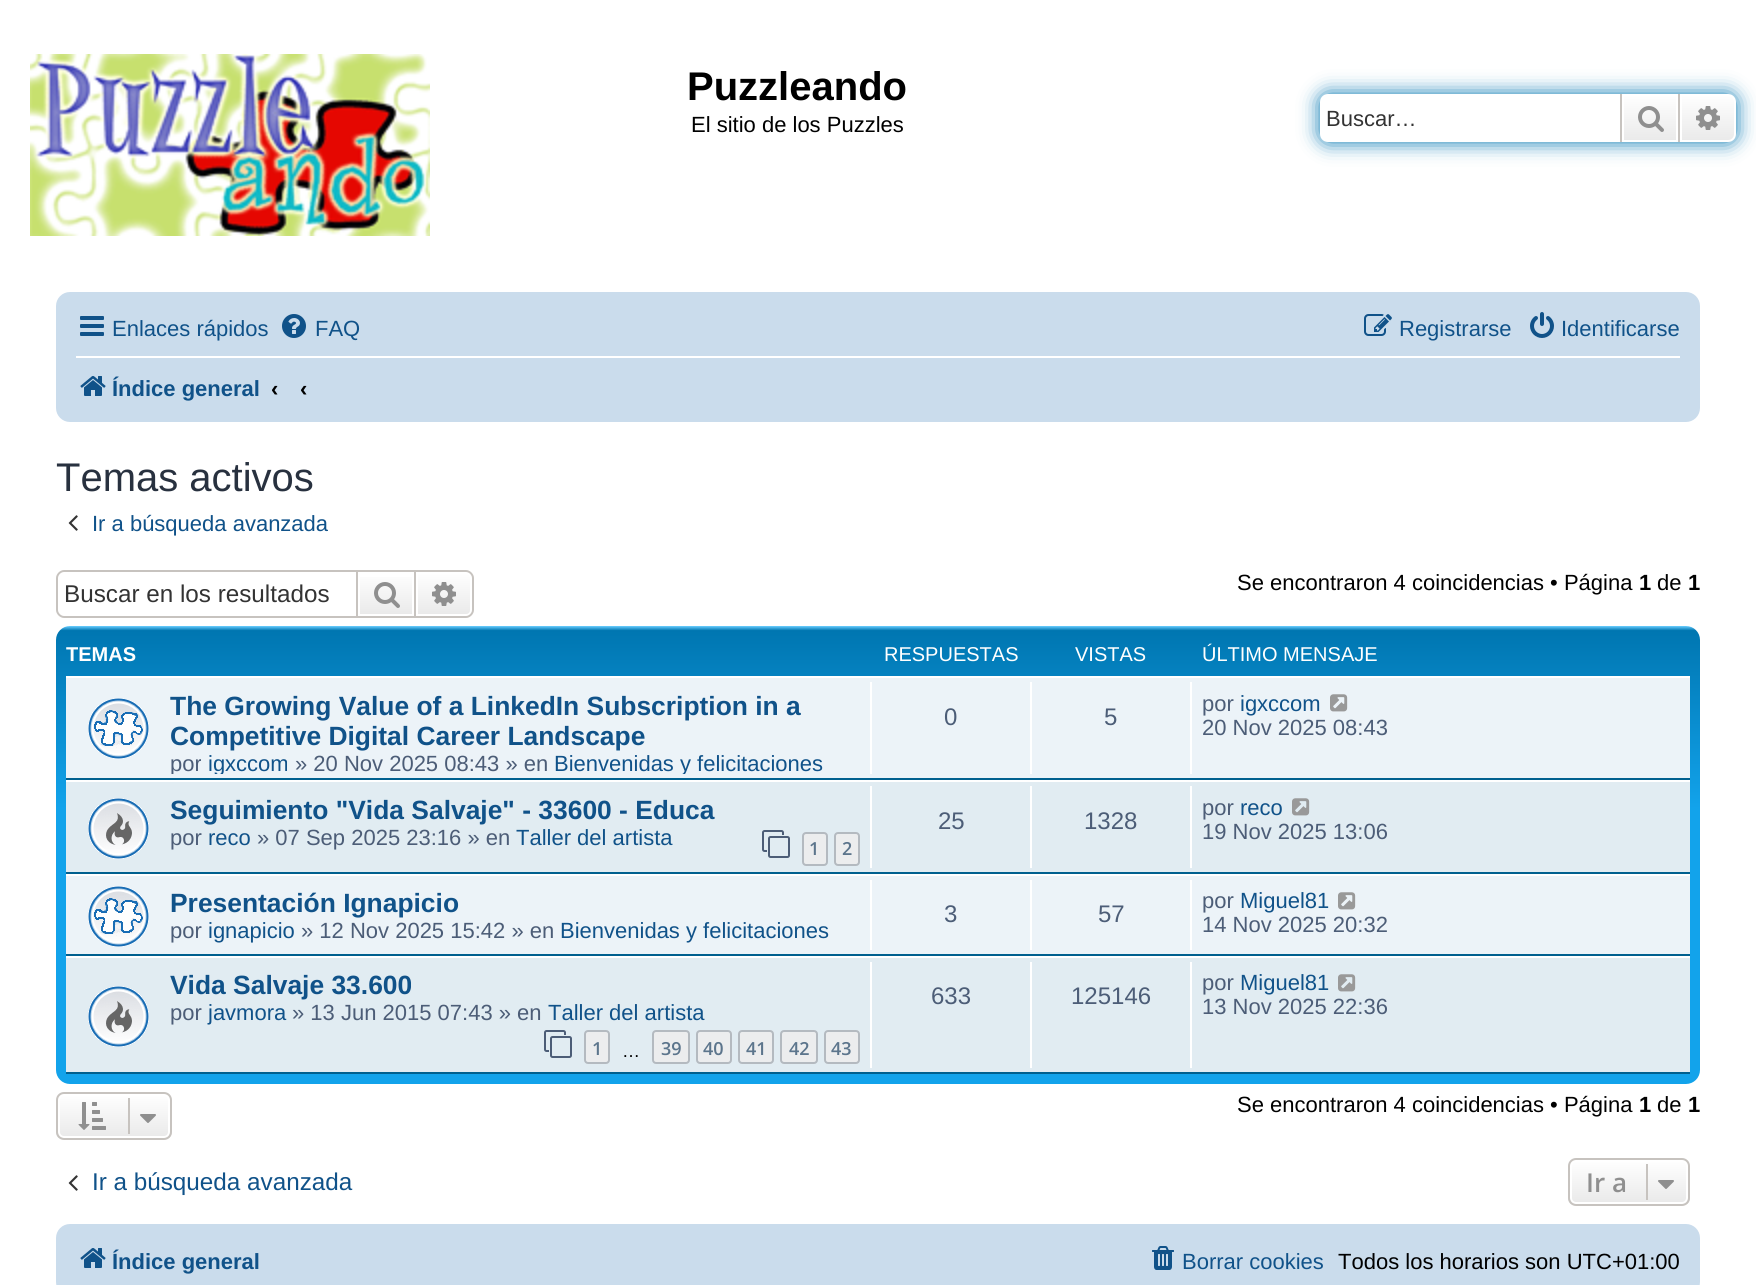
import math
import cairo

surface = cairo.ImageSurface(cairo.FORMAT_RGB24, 1756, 1285)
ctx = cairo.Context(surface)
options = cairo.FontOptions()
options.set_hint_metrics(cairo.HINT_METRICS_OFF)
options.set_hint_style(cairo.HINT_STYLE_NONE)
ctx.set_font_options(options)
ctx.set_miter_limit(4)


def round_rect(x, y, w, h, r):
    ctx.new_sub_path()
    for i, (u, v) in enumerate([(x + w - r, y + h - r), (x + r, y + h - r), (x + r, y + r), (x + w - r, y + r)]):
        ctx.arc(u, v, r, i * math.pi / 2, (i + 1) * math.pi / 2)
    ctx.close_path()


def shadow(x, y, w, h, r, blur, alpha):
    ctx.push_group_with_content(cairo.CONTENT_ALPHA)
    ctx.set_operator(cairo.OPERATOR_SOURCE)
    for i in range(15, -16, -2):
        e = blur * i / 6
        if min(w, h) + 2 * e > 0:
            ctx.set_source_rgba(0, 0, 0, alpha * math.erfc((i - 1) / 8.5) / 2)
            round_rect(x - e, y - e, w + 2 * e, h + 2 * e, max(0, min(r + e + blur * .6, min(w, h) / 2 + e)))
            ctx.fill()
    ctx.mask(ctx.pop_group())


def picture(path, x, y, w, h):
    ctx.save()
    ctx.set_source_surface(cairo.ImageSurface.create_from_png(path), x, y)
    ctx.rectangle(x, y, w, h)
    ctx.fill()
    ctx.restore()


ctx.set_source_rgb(1, 1, 1)
ctx.paint()
picture("img1.png", 30, 54, 400, 182)
ctx.select_font_face("Liberation Sans", cairo.FONT_SLANT_NORMAL, cairo.FONT_WEIGHT_BOLD)
ctx.set_font_size(40)
ctx.set_source_rgb(0, 0, 0)
ctx.move_to(687, 100)
ctx.show_text("Puzzleando")
ctx.select_font_face("Liberation Sans")
ctx.set_font_size(22)
ctx.move_to(691, 132)
ctx.show_text("El sitio de los Puzzles")
ctx.set_source_rgb(0, 0.459, 0.69)
shadow(1320, 94, 416, 48, 8, 10, 1)
ctx.set_source_rgb(1, 1, 1)
ctx.new_path()
ctx.move_to(1328, 94)
ctx.line_to(1620, 94)
ctx.line_to(1620, 142)
ctx.line_to(1328, 142)
ctx.curve_to(1323.5, 142, 1320, 138.5, 1320, 134)
ctx.line_to(1320, 102)
ctx.curve_to(1320, 97.5, 1323.5, 94, 1328, 94)
ctx.close_path()
ctx.fill()
ctx.set_source_rgb(0.2, 0.2, 0.2)
ctx.move_to(1326, 126)
ctx.show_text("Buscar…")
gradient = cairo.LinearGradient(1650, 94, 1650, 142)
gradient.add_color_stop_rgba(0, 1, 1, 1, 1)
gradient.add_color_stop_rgba(1, 0.914, 0.914, 0.914, 1)
ctx.set_source(gradient)
ctx.rectangle(1624, 96, 52, 44)
ctx.fill()
ctx.rectangle(1623, 95, 54, 46)
ctx.set_source_rgb(1, 1, 1)
ctx.stroke()
ctx.set_source_rgb(0.78, 0.765, 0.749)
ctx.rectangle(1678, 94, 2, 48)
ctx.fill()
ctx.rectangle(1620, 94, 2, 48)
ctx.fill()
picture("img2.png", 1638, 106, 26, 26)
gradient = cairo.LinearGradient(1708, 94, 1708, 142)
gradient.add_color_stop_rgba(0, 1, 1, 1, 1)
gradient.add_color_stop_rgba(1, 0.914, 0.914, 0.914, 1)
ctx.set_source(gradient)
ctx.new_path()
ctx.move_to(1681, 95)
ctx.line_to(1728, 95)
ctx.curve_to(1732, 95, 1735, 98, 1735, 102)
ctx.line_to(1735, 134)
ctx.curve_to(1735, 138, 1732, 141, 1728, 141)
ctx.line_to(1681, 141)
ctx.close_path()
ctx.fill_preserve()
ctx.set_source_rgb(1, 1, 1)
ctx.stroke()
picture("img3.png", 1696, 106, 24, 24)
ctx.set_source_rgb(0.792, 0.863, 0.922)
round_rect(56, 292, 1644, 130, 14)
ctx.fill()
picture("img4.png", 80, 316, 24, 20)
ctx.set_source_rgb(0.063, 0.322, 0.537)
ctx.move_to(112, 336)
ctx.show_text("Enlaces rápidos")
picture("img5.png", 282, 314, 24, 24)
ctx.move_to(315, 336)
ctx.show_text("FAQ")
picture("img6.png", 1364, 314, 28, 22)
ctx.move_to(1399, 336)
ctx.show_text("Registrarse")
picture("img7.png", 1530, 312, 24, 26)
ctx.move_to(1561, 336)
ctx.show_text("Identificarse")
ctx.set_source_rgb(1, 1, 1)
ctx.rectangle(76, 356, 1604, 2)
ctx.fill()
picture("img8.png", 80, 376, 26, 20)
ctx.select_font_face("Liberation Sans", cairo.FONT_SLANT_NORMAL, cairo.FONT_WEIGHT_BOLD)
ctx.set_source_rgb(0.063, 0.322, 0.537)
ctx.move_to(112, 396)
ctx.show_text("Índice general")
ctx.set_source_rgb(0, 0, 0)
ctx.move_to(271, 396)
ctx.show_text("‹")
ctx.move_to(300, 396)
ctx.show_text("‹")
ctx.select_font_face("Liberation Sans")
ctx.set_font_size(40)
ctx.set_source_rgb(0.157, 0.192, 0.247)
ctx.move_to(56, 491)
ctx.show_text("Temas activos")
picture("img9.png", 68, 515, 10, 16)
ctx.set_font_size(22)
ctx.set_source_rgb(0.063, 0.322, 0.537)
ctx.move_to(92, 531)
ctx.show_text("Ir a búsqueda avanzada")
ctx.set_source_rgb(0.78, 0.765, 0.749)
ctx.set_fill_rule(cairo.FILL_RULE_EVEN_ODD)
ctx.new_path()
ctx.move_to(64, 570)
ctx.line_to(356, 570)
ctx.line_to(356, 618)
ctx.line_to(64, 618)
ctx.curve_to(60, 618, 56, 614, 56, 610)
ctx.line_to(56, 578)
ctx.curve_to(56, 574, 60, 570, 64, 570)
ctx.close_path()
ctx.move_to(64, 572)
ctx.line_to(356, 572)
ctx.line_to(356, 616)
ctx.line_to(64, 616)
ctx.curve_to(61, 616, 58, 613, 58, 610)
ctx.line_to(58, 578)
ctx.curve_to(58, 575, 61, 572, 64, 572)
ctx.close_path()
ctx.fill()
ctx.set_font_size(24.25)
ctx.set_source_rgb(0.2, 0.2, 0.2)
ctx.move_to(64, 602)
ctx.show_text("Buscar en los resultados")
gradient = cairo.LinearGradient(386, 572, 386, 616)
gradient.add_color_stop_rgba(0, 1, 1, 1, 1)
gradient.add_color_stop_rgba(1, 0.914, 0.914, 0.914, 1)
ctx.set_source(gradient)
ctx.rectangle(360, 577, 52, 37)
ctx.fill()
ctx.rectangle(357, 571, 58, 46)
ctx.set_source_rgb(0.78, 0.765, 0.749)
ctx.stroke()
picture("img10.png", 374, 582, 26, 26)
gradient = cairo.LinearGradient(444, 572, 444, 616)
gradient.add_color_stop_rgba(0, 1, 1, 1, 1)
gradient.add_color_stop_rgba(1, 0.914, 0.914, 0.914, 1)
ctx.set_source(gradient)
ctx.new_path()
ctx.move_to(417, 573)
ctx.line_to(466, 573)
ctx.curve_to(469, 573, 471, 575, 471, 578)
ctx.line_to(471, 610)
ctx.curve_to(471, 613, 469, 615, 466, 615)
ctx.line_to(417, 615)
ctx.close_path()
ctx.fill_preserve()
ctx.set_source_rgb(1, 1, 1)
ctx.stroke()
ctx.set_source_rgb(0.78, 0.765, 0.749)
ctx.new_path()
ctx.move_to(416, 570)
ctx.line_to(466, 570)
ctx.curve_to(470, 570, 474, 574, 474, 578)
ctx.line_to(474, 610)
ctx.curve_to(474, 614, 470, 618, 466, 618)
ctx.line_to(416, 618)
ctx.close_path()
ctx.move_to(416, 572)
ctx.line_to(466, 572)
ctx.curve_to(469, 572, 472, 575, 472, 578)
ctx.line_to(472, 610)
ctx.curve_to(472, 613, 469, 616, 466, 616)
ctx.line_to(416, 616)
ctx.close_path()
ctx.fill()
picture("img11.png", 432, 582, 24, 24)
ctx.set_font_size(22)
ctx.set_source_rgb(0, 0, 0)
ctx.move_to(1237, 590)
ctx.show_text("Se encontraron 4 coincidencias • Página")
ctx.select_font_face("Liberation Sans", cairo.FONT_SLANT_NORMAL, cairo.FONT_WEIGHT_BOLD)
ctx.move_to(1639, 590)
ctx.show_text("1")
ctx.select_font_face("Liberation Sans")
ctx.move_to(1657, 590)
ctx.show_text("de")
ctx.select_font_face("Liberation Sans", cairo.FONT_SLANT_NORMAL, cairo.FONT_WEIGHT_BOLD)
ctx.move_to(1688, 590)
ctx.show_text("1")
gradient = cairo.LinearGradient(878, 626, 878, 1084)
gradient.add_color_stop_rgba(0, 0.416, 0.808, 1, 1)
gradient.add_color_stop_rgba(0.01, 0, 0.463, 0.694, 1)
gradient.add_color_stop_rgba(0.4, 0.071, 0.639, 0.922, 1)
gradient.add_color_stop_rgba(1, 0.071, 0.639, 0.922, 1)
ctx.set_source(gradient)
round_rect(56, 626, 1644, 458, 14)
ctx.fill()
ctx.set_font_size(20)
ctx.set_source_rgb(1, 1, 1)
ctx.move_to(66, 661)
ctx.show_text("TEMAS")
ctx.select_font_face("Liberation Sans")
ctx.move_to(884, 661)
ctx.show_text("RESPUESTAS")
ctx.move_to(1075, 661)
ctx.show_text("VISTAS")
ctx.move_to(1202, 661)
ctx.show_text("ÚLTIMO MENSAJE")
ctx.set_source_rgb(0.925, 0.953, 0.969)
ctx.rectangle(66, 678, 1624, 100)
ctx.fill()
ctx.set_source_rgb(1, 1, 1)
ctx.rectangle(66, 676, 1624, 2)
ctx.fill()
ctx.set_source_rgb(0, 0.376, 0.561)
ctx.rectangle(66, 778, 1624, 2)
ctx.fill()
picture("img12.png", 88, 698, 61, 61)
ctx.select_font_face("Liberation Sans", cairo.FONT_SLANT_NORMAL, cairo.FONT_WEIGHT_BOLD)
ctx.set_font_size(26.4)
ctx.set_source_rgb(0.063, 0.322, 0.537)
ctx.move_to(170, 715)
ctx.show_text("The Growing Value of a LinkedIn Subscription in a")
ctx.move_to(170, 745)
ctx.show_text("Competitive Digital Career Landscape")
ctx.save()
ctx.set_fill_rule(cairo.FILL_RULE_WINDING)
ctx.rectangle(66, 682, 1624, 92)
ctx.clip()
ctx.select_font_face("Liberation Sans")
ctx.set_font_size(22)
ctx.set_source_rgb(0.298, 0.365, 0.467)
ctx.move_to(170, 771)
ctx.show_text("por")
ctx.set_source_rgb(0.063, 0.322, 0.537)
ctx.move_to(208, 771)
ctx.show_text("igxccom")
ctx.restore()
ctx.select_font_face("Liberation Sans")
ctx.set_font_size(22)
ctx.set_source_rgb(0.298, 0.365, 0.467)
ctx.move_to(295, 771)
ctx.show_text("» 20 Nov 2025 08:43 » en")
ctx.save()
ctx.set_fill_rule(cairo.FILL_RULE_WINDING)
ctx.rectangle(66, 682, 1624, 92)
ctx.clip()
ctx.set_source_rgb(0.063, 0.322, 0.537)
ctx.move_to(554, 771)
ctx.show_text("Bienvenidas y felicitaciones")
ctx.restore()
ctx.set_source_rgb(1, 1, 1)
ctx.rectangle(870, 682, 2, 92)
ctx.fill()
ctx.set_font_size(24)
ctx.set_source_rgb(0.298, 0.365, 0.467)
ctx.move_to(944, 725)
ctx.show_text("0")
ctx.set_source_rgb(1, 1, 1)
ctx.rectangle(1030, 682, 2, 92)
ctx.fill()
ctx.set_source_rgb(0.298, 0.365, 0.467)
ctx.move_to(1104, 725)
ctx.show_text("5")
ctx.set_source_rgb(1, 1, 1)
ctx.rectangle(1190, 682, 2, 92)
ctx.fill()
ctx.set_font_size(22)
ctx.set_source_rgb(0.298, 0.365, 0.467)
ctx.move_to(1202, 711)
ctx.show_text("por")
ctx.set_source_rgb(0.063, 0.322, 0.537)
ctx.move_to(1240, 711)
ctx.show_text("igxccom")
picture("img13.png", 1330, 694, 18, 18)
ctx.set_source_rgb(0.298, 0.365, 0.467)
ctx.move_to(1202, 735)
ctx.show_text("20 Nov 2025 08:43")
ctx.set_source_rgb(0.882, 0.922, 0.949)
ctx.rectangle(66, 782, 1624, 90)
ctx.fill()
ctx.set_source_rgb(1, 1, 1)
ctx.rectangle(66, 780, 1624, 2)
ctx.fill()
ctx.set_source_rgb(0, 0.376, 0.561)
ctx.rectangle(66, 872, 1624, 2)
ctx.fill()
picture("img14.png", 88, 798, 61, 61)
ctx.select_font_face("Liberation Sans", cairo.FONT_SLANT_NORMAL, cairo.FONT_WEIGHT_BOLD)
ctx.set_font_size(26.4)
ctx.set_source_rgb(0.063, 0.322, 0.537)
ctx.move_to(170, 819)
ctx.show_text("Seguimiento \"Vida Salvaje\" - 33600 - Educa")
ctx.select_font_face("Liberation Sans")
ctx.set_font_size(22)
ctx.set_source_rgb(0.298, 0.365, 0.467)
ctx.move_to(170, 845)
ctx.show_text("por")
ctx.set_source_rgb(0.063, 0.322, 0.537)
ctx.move_to(208, 845)
ctx.show_text("reco")
ctx.set_source_rgb(0.298, 0.365, 0.467)
ctx.move_to(257, 845)
ctx.show_text("» 07 Sep 2025 23:16 » en")
ctx.set_source_rgb(0.063, 0.322, 0.537)
ctx.move_to(516, 845)
ctx.show_text("Taller del artista")
picture("img15.png", 762, 830, 28, 28)
ctx.set_source_rgb(0.925, 0.929, 0.933)
round_rect(803, 833, 24, 32, 3)
ctx.fill_preserve()
ctx.set_source_rgb(0.706, 0.729, 0.753)
ctx.stroke()
ctx.select_font_face("Open Sans SemiBold")
ctx.set_font_size(18)
ctx.set_source_rgb(0.361, 0.459, 0.549)
ctx.move_to(809, 855)
ctx.show_text("1")
ctx.set_source_rgb(0.925, 0.929, 0.933)
round_rect(835, 833, 24, 32, 3)
ctx.fill_preserve()
ctx.set_source_rgb(0.706, 0.729, 0.753)
ctx.stroke()
ctx.set_source_rgb(0.361, 0.459, 0.549)
ctx.move_to(842, 855)
ctx.show_text("2")
ctx.set_source_rgb(1, 1, 1)
ctx.rectangle(870, 786, 2, 82)
ctx.fill()
ctx.select_font_face("Liberation Sans")
ctx.set_font_size(24)
ctx.set_source_rgb(0.298, 0.365, 0.467)
ctx.move_to(938, 829)
ctx.show_text("25")
ctx.set_source_rgb(1, 1, 1)
ctx.rectangle(1030, 786, 2, 82)
ctx.fill()
ctx.set_source_rgb(0.298, 0.365, 0.467)
ctx.move_to(1084, 829)
ctx.show_text("1328")
ctx.set_source_rgb(1, 1, 1)
ctx.rectangle(1190, 786, 2, 82)
ctx.fill()
ctx.set_font_size(22)
ctx.set_source_rgb(0.298, 0.365, 0.467)
ctx.move_to(1202, 815)
ctx.show_text("por")
ctx.set_source_rgb(0.063, 0.322, 0.537)
ctx.move_to(1240, 815)
ctx.show_text("reco")
picture("img16.png", 1292, 798, 18, 18)
ctx.set_source_rgb(0.298, 0.365, 0.467)
ctx.move_to(1202, 839)
ctx.show_text("19 Nov 2025 13:06")
ctx.set_source_rgb(0.925, 0.953, 0.969)
ctx.rectangle(66, 876, 1624, 78)
ctx.fill()
ctx.set_source_rgb(1, 1, 1)
ctx.rectangle(66, 874, 1624, 2)
ctx.fill()
ctx.set_source_rgb(0, 0.376, 0.561)
ctx.rectangle(66, 954, 1624, 2)
ctx.fill()
picture("img12.png", 88, 886, 61, 61)
ctx.select_font_face("Liberation Sans", cairo.FONT_SLANT_NORMAL, cairo.FONT_WEIGHT_BOLD)
ctx.set_font_size(26.4)
ctx.set_source_rgb(0.063, 0.322, 0.537)
ctx.move_to(170, 912)
ctx.show_text("Presentación Ignapicio")
ctx.select_font_face("Liberation Sans")
ctx.set_font_size(22)
ctx.set_source_rgb(0.298, 0.365, 0.467)
ctx.move_to(170, 938)
ctx.show_text("por")
ctx.set_source_rgb(0.063, 0.322, 0.537)
ctx.move_to(208, 938)
ctx.show_text("ignapicio")
ctx.set_source_rgb(0.298, 0.365, 0.467)
ctx.move_to(301, 938)
ctx.show_text("» 12 Nov 2025 15:42 » en")
ctx.set_source_rgb(0.063, 0.322, 0.537)
ctx.move_to(560, 938)
ctx.show_text("Bienvenidas y felicitaciones")
ctx.set_source_rgb(1, 1, 1)
ctx.rectangle(870, 880, 2, 70)
ctx.fill()
ctx.set_font_size(24)
ctx.set_source_rgb(0.298, 0.365, 0.467)
ctx.move_to(944, 922)
ctx.show_text("3")
ctx.set_source_rgb(1, 1, 1)
ctx.rectangle(1030, 880, 2, 70)
ctx.fill()
ctx.set_source_rgb(0.298, 0.365, 0.467)
ctx.move_to(1098, 922)
ctx.show_text("57")
ctx.set_source_rgb(1, 1, 1)
ctx.rectangle(1190, 880, 2, 70)
ctx.fill()
ctx.set_font_size(22)
ctx.set_source_rgb(0.298, 0.365, 0.467)
ctx.move_to(1202, 908)
ctx.show_text("por")
ctx.set_source_rgb(0.063, 0.322, 0.537)
ctx.move_to(1240, 908)
ctx.show_text("Miguel81")
picture("img13.png", 1338, 892, 18, 18)
ctx.set_source_rgb(0.298, 0.365, 0.467)
ctx.move_to(1202, 932)
ctx.show_text("14 Nov 2025 20:32")
ctx.set_source_rgb(0.882, 0.922, 0.949)
ctx.rectangle(66, 958, 1624, 114)
ctx.fill()
ctx.set_source_rgb(1, 1, 1)
ctx.rectangle(66, 956, 1624, 2)
ctx.fill()
ctx.set_source_rgb(0, 0.376, 0.561)
ctx.rectangle(66, 1072, 1624, 2)
ctx.fill()
picture("img14.png", 88, 986, 61, 61)
ctx.select_font_face("Liberation Sans", cairo.FONT_SLANT_NORMAL, cairo.FONT_WEIGHT_BOLD)
ctx.set_font_size(26.4)
ctx.set_source_rgb(0.063, 0.322, 0.537)
ctx.move_to(170, 994)
ctx.show_text("Vida Salvaje 33.600")
ctx.select_font_face("Liberation Sans")
ctx.set_font_size(22)
ctx.set_source_rgb(0.298, 0.365, 0.467)
ctx.move_to(170, 1020)
ctx.show_text("por")
ctx.set_source_rgb(0.063, 0.322, 0.537)
ctx.move_to(208, 1020)
ctx.show_text("javmora")
ctx.set_source_rgb(0.298, 0.365, 0.467)
ctx.move_to(292, 1020)
ctx.show_text("» 13 Jun 2015 07:43 » en")
ctx.set_source_rgb(0.063, 0.322, 0.537)
ctx.move_to(548, 1020)
ctx.show_text("Taller del artista")
picture("img15.png", 544, 1030, 28, 28)
ctx.set_source_rgb(0.925, 0.929, 0.933)
round_rect(585, 1031, 24, 32, 3)
ctx.fill_preserve()
ctx.set_source_rgb(0.706, 0.729, 0.753)
ctx.stroke()
ctx.select_font_face("Open Sans SemiBold")
ctx.set_font_size(18)
ctx.set_source_rgb(0.361, 0.459, 0.549)
ctx.move_to(592, 1055)
ctx.show_text("1")
ctx.set_source_rgb(0.925, 0.929, 0.933)
round_rect(653, 1031, 36, 32, 3)
ctx.fill_preserve()
ctx.set_source_rgb(0.706, 0.729, 0.753)
ctx.stroke()
ctx.set_source_rgb(0.361, 0.459, 0.549)
ctx.move_to(661, 1055)
ctx.show_text("39")
ctx.set_source_rgb(0.925, 0.929, 0.933)
round_rect(697, 1031, 34, 32, 3)
ctx.fill_preserve()
ctx.set_source_rgb(0.706, 0.729, 0.753)
ctx.stroke()
ctx.set_source_rgb(0.361, 0.459, 0.549)
ctx.move_to(703, 1055)
ctx.show_text("40")
ctx.set_source_rgb(0.925, 0.929, 0.933)
round_rect(739, 1031, 34, 32, 3)
ctx.fill_preserve()
ctx.set_source_rgb(0.706, 0.729, 0.753)
ctx.stroke()
ctx.set_source_rgb(0.361, 0.459, 0.549)
ctx.move_to(746, 1055)
ctx.show_text("41")
ctx.set_source_rgb(0.925, 0.929, 0.933)
round_rect(781, 1031, 36, 32, 3)
ctx.fill_preserve()
ctx.set_source_rgb(0.706, 0.729, 0.753)
ctx.stroke()
ctx.set_source_rgb(0.361, 0.459, 0.549)
ctx.move_to(789, 1055)
ctx.show_text("42")
ctx.set_source_rgb(0.925, 0.929, 0.933)
round_rect(825, 1031, 34, 32, 3)
ctx.fill_preserve()
ctx.set_source_rgb(0.706, 0.729, 0.753)
ctx.stroke()
ctx.set_source_rgb(0.361, 0.459, 0.549)
ctx.move_to(831, 1055)
ctx.show_text("43")
ctx.select_font_face("Liberation Sans")
ctx.set_source_rgb(0, 0, 0)
ctx.move_to(622, 1057)
ctx.show_text("…")
ctx.set_source_rgb(1, 1, 1)
ctx.rectangle(870, 962, 2, 106)
ctx.fill()
ctx.set_font_size(24)
ctx.set_source_rgb(0.298, 0.365, 0.467)
ctx.move_to(931, 1004)
ctx.show_text("633")
ctx.set_source_rgb(1, 1, 1)
ctx.rectangle(1030, 962, 2, 106)
ctx.fill()
ctx.set_source_rgb(0.298, 0.365, 0.467)
ctx.move_to(1071, 1004)
ctx.show_text("125146")
ctx.set_source_rgb(1, 1, 1)
ctx.rectangle(1190, 962, 2, 106)
ctx.fill()
ctx.set_font_size(22)
ctx.set_source_rgb(0.298, 0.365, 0.467)
ctx.move_to(1202, 990)
ctx.show_text("por")
ctx.set_source_rgb(0.063, 0.322, 0.537)
ctx.move_to(1240, 990)
ctx.show_text("Miguel81")
picture("img16.png", 1338, 974, 18, 18)
ctx.set_source_rgb(0.298, 0.365, 0.467)
ctx.move_to(1202, 1014)
ctx.show_text("13 Nov 2025 22:36")
ctx.save()
ctx.set_fill_rule(cairo.FILL_RULE_WINDING)
round_rect(56, 1092, 116, 48, 8)
ctx.clip()
gradient = cairo.LinearGradient(114, 1094, 114, 1138)
gradient.add_color_stop_rgba(0, 1, 1, 1, 1)
gradient.add_color_stop_rgba(1, 0.914, 0.914, 0.914, 1)
ctx.set_source(gradient)
ctx.rectangle(56, 1094, 116, 44)
ctx.fill()
ctx.restore()
round_rect(59, 1095, 110, 42, 5)
ctx.set_source_rgb(1, 1, 1)
ctx.stroke()
round_rect(57, 1093, 114, 46, 7)
ctx.set_source_rgb(0.78, 0.765, 0.749)
ctx.stroke()
picture("img17.png", 78, 1102, 28, 28)
ctx.rectangle(128, 1098, 2, 36)
ctx.fill()
picture("img18.png", 140, 1114, 16, 9)
ctx.set_source_rgb(0, 0, 0)
ctx.move_to(1237, 1112)
ctx.show_text("Se encontraron 4 coincidencias • Página")
ctx.select_font_face("Liberation Sans", cairo.FONT_SLANT_NORMAL, cairo.FONT_WEIGHT_BOLD)
ctx.move_to(1639, 1112)
ctx.show_text("1")
ctx.select_font_face("Liberation Sans")
ctx.move_to(1657, 1112)
ctx.show_text("de")
ctx.select_font_face("Liberation Sans", cairo.FONT_SLANT_NORMAL, cairo.FONT_WEIGHT_BOLD)
ctx.move_to(1688, 1112)
ctx.show_text("1")
picture("img9.png", 68, 1175, 10, 16)
ctx.select_font_face("Liberation Sans")
ctx.set_font_size(24.25)
ctx.set_source_rgb(0.063, 0.322, 0.537)
ctx.move_to(92, 1190)
ctx.show_text("Ir a búsqueda avanzada")
ctx.save()
ctx.set_fill_rule(cairo.FILL_RULE_WINDING)
round_rect(1568, 1158, 122, 48, 8)
ctx.clip()
gradient = cairo.LinearGradient(1629, 1160, 1629, 1204)
gradient.add_color_stop_rgba(0, 1, 1, 1, 1)
gradient.add_color_stop_rgba(1, 0.914, 0.914, 0.914, 1)
ctx.set_source(gradient)
ctx.rectangle(1568, 1160, 122, 44)
ctx.fill()
ctx.restore()
round_rect(1571, 1161, 116, 42, 5)
ctx.set_source_rgb(1, 1, 1)
ctx.stroke()
round_rect(1569, 1159, 120, 46, 7)
ctx.set_source_rgb(0.78, 0.765, 0.749)
ctx.stroke()
ctx.select_font_face("Open Sans SemiBold")
ctx.set_font_size(26)
ctx.set_source_rgb(0.561, 0.561, 0.561)
ctx.move_to(1586, 1192)
ctx.show_text("Ir a")
ctx.set_source_rgb(0.78, 0.765, 0.749)
ctx.rectangle(1646, 1164, 2, 36)
ctx.fill()
picture("img18.png", 1658, 1180, 16, 9)
ctx.set_source_rgb(0.792, 0.863, 0.922)
round_rect(56, 1224, 1644, 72, 14)
ctx.fill()
picture("img8.png", 80, 1248, 26, 20)
ctx.select_font_face("Liberation Sans", cairo.FONT_SLANT_NORMAL, cairo.FONT_WEIGHT_BOLD)
ctx.set_font_size(22)
ctx.set_source_rgb(0.063, 0.322, 0.537)
ctx.move_to(112, 1269)
ctx.show_text("Índice general")
picture("img19.png", 1152, 1246, 22, 24)
ctx.select_font_face("Liberation Sans")
ctx.move_to(1182, 1269)
ctx.show_text("Borrar cookies")
ctx.set_source_rgb(0, 0, 0)
ctx.move_to(1338, 1269)
ctx.show_text("Todos los horarios son UTC+01:00")
surface.write_to_png("page.png")
